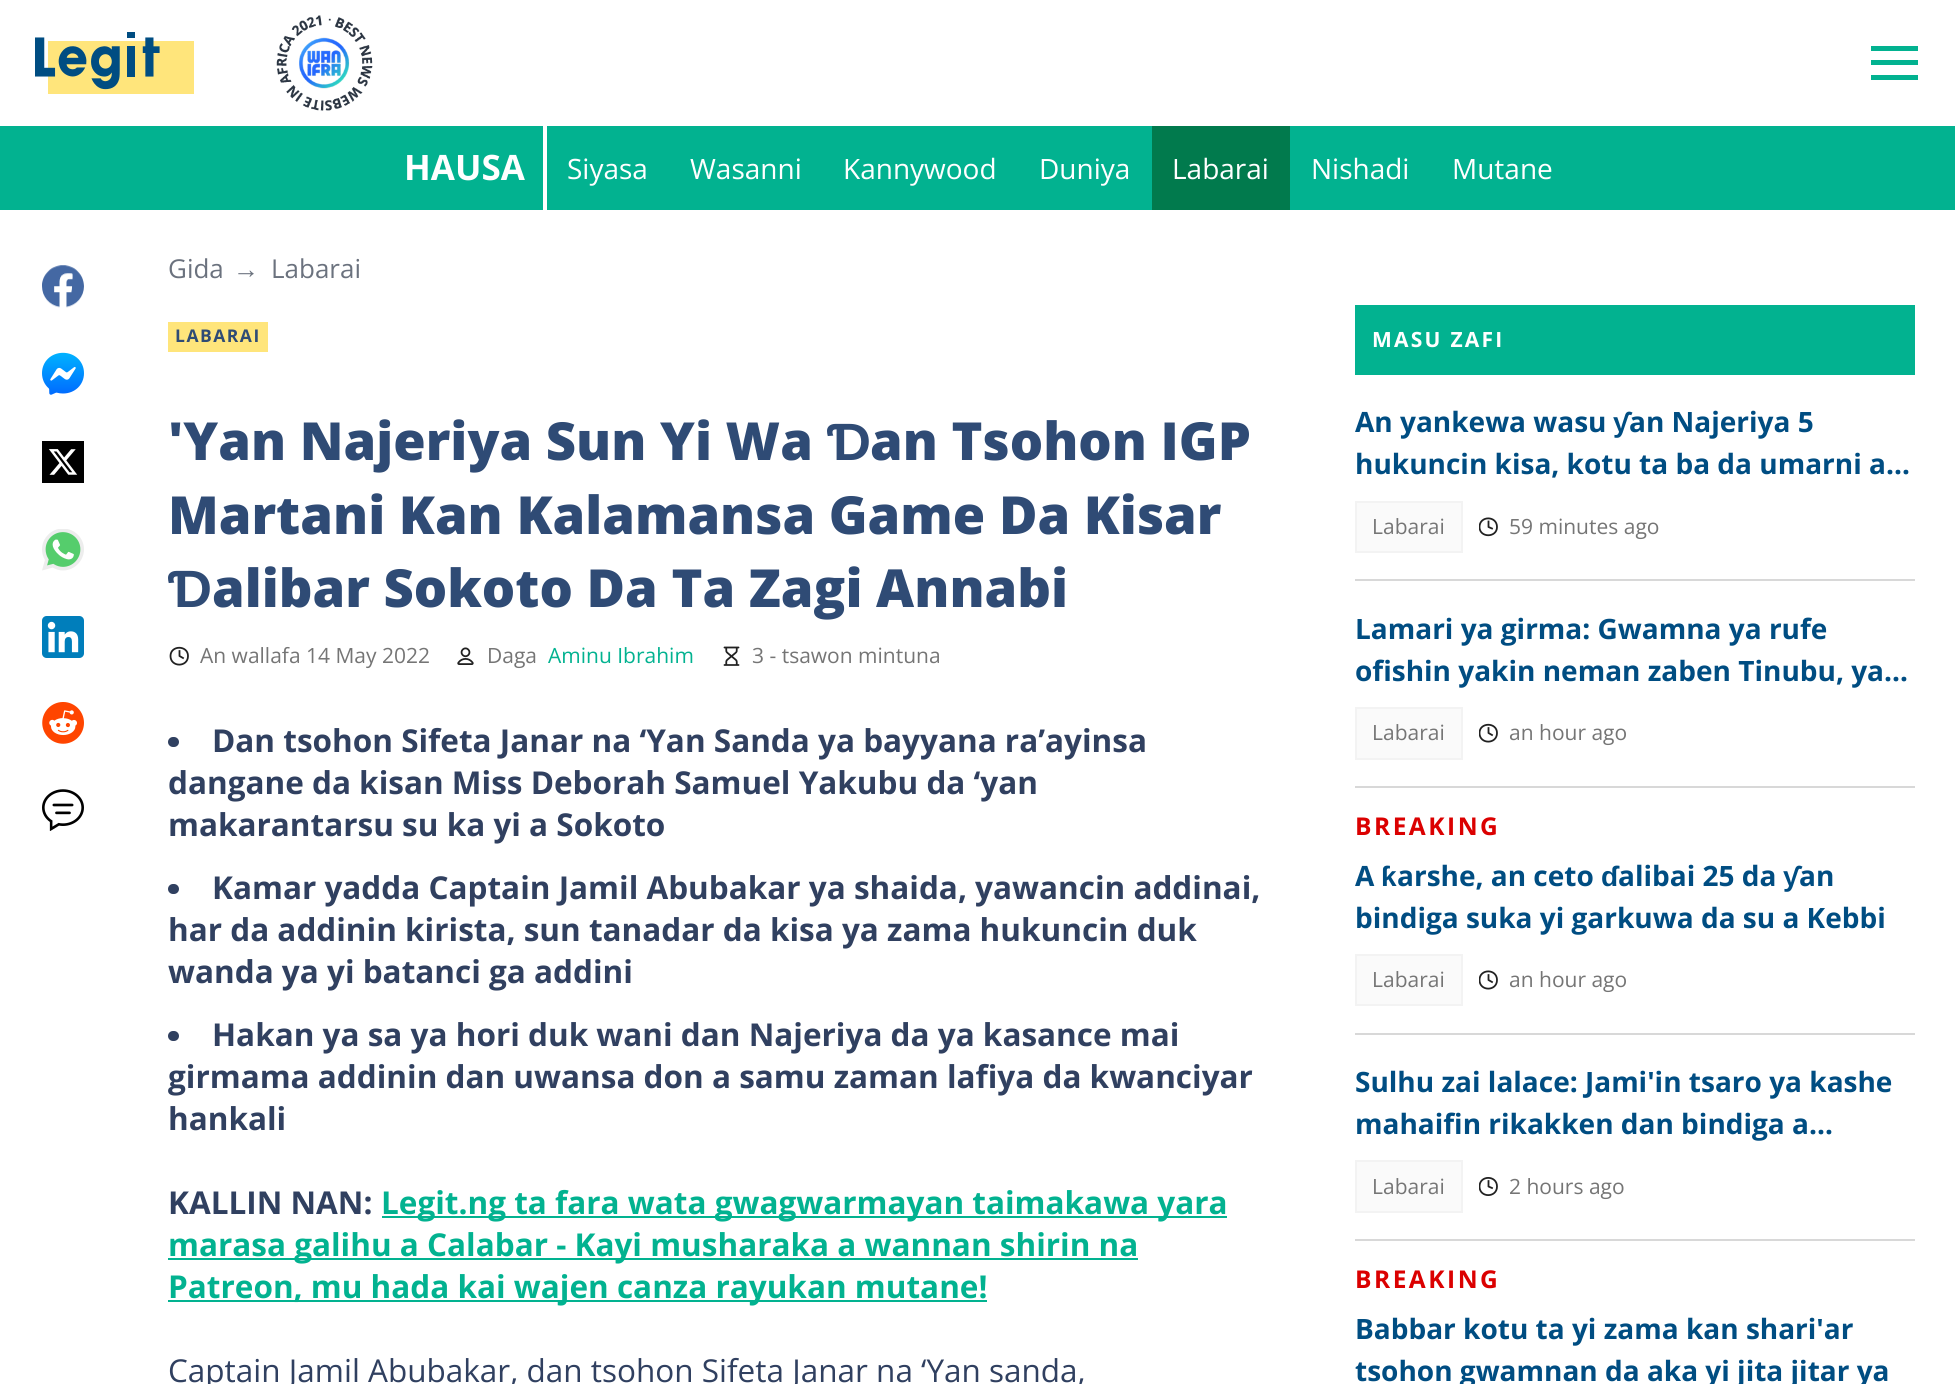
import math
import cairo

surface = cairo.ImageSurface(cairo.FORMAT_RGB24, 1955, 1384)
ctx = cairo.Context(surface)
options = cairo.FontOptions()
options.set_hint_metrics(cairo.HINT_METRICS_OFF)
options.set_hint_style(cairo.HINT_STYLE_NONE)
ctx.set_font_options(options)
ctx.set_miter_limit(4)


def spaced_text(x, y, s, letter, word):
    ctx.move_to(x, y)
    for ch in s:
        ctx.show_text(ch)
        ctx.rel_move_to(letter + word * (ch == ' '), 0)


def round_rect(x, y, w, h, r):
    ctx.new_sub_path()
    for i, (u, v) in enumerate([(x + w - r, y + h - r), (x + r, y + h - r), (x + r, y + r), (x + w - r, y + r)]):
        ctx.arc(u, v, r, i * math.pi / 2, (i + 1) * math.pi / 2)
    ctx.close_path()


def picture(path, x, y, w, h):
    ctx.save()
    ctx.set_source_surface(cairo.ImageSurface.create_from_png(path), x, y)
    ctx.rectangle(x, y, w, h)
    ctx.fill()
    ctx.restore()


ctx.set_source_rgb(1, 1, 1)
ctx.paint()
picture("img1.png", 35, 32, 159, 62)
picture("img2.png", 276, 15, 97, 96)
ctx.set_source_rgb(0.008, 0.698, 0.565)
ctx.rectangle(1871, 46, 47, 5)
ctx.fill()
ctx.rectangle(1871, 60, 47, 5)
ctx.fill()
ctx.rectangle(1871, 75, 47, 5)
ctx.fill()
ctx.rectangle(0, 126, 1955, 84)
ctx.fill()
ctx.select_font_face("Open Sans", cairo.FONT_SLANT_NORMAL, cairo.FONT_WEIGHT_BOLD)
ctx.set_font_size(35)
ctx.set_source_rgb(1, 1, 1)
ctx.move_to(404, 180)
ctx.show_text("HAUSA")
ctx.rectangle(543, 126, 4, 84)
ctx.fill()
ctx.select_font_face("Open Sans")
ctx.set_font_size(28)
ctx.move_to(567, 179)
ctx.show_text("Siyasa")
ctx.move_to(690, 179)
ctx.show_text("Wasanni")
ctx.move_to(843, 179)
ctx.show_text("Kannywood")
ctx.move_to(1039, 179)
ctx.show_text("Duniya")
ctx.set_source_rgb(0.004, 0.478, 0.302)
ctx.rectangle(1152, 126, 138, 84)
ctx.fill()
ctx.set_source_rgb(1, 1, 1)
ctx.move_to(1172, 179)
ctx.show_text("Labarai")
ctx.move_to(1311, 179)
ctx.show_text("Nishadi")
ctx.move_to(1452, 179)
ctx.show_text("Mutane")
picture("img3.png", 42, 265, 42, 43)
picture("img4.png", 42, 352, 42, 43)
picture("img5.png", 42, 441, 42, 42)
picture("img6.png", 42, 529, 42, 42)
picture("img7.png", 42, 616, 42, 42)
picture("img8.png", 42, 702, 42, 42)
picture("img9.png", 42, 789, 42, 42)
ctx.set_font_size(26)
ctx.set_source_rgb(0.42, 0.447, 0.494)
ctx.move_to(168, 278)
ctx.show_text("Gida")
ctx.select_font_face("Liberation Sans")
ctx.move_to(233, 278)
ctx.show_text("→")
ctx.select_font_face("Open Sans")
ctx.move_to(271, 278)
ctx.show_text("Labarai")
ctx.set_source_rgb(1, 0.898, 0.482)
ctx.rectangle(168, 322, 100, 30)
ctx.fill()
ctx.select_font_face("Open Sans", cairo.FONT_SLANT_NORMAL, cairo.FONT_WEIGHT_BOLD)
ctx.set_font_size(17.5)
ctx.set_source_rgb(0.184, 0.294, 0.459)
spaced_text(175, 342, "LABARAI", 1.5, 0)
ctx.select_font_face("Open Sans ExtraBold")
ctx.set_font_size(52.5)
ctx.move_to(168, 460)
ctx.show_text("'Yan Najeriya Sun Yi Wa")
ctx.select_font_face("Liberation Sans", cairo.FONT_SLANT_NORMAL, cairo.FONT_WEIGHT_BOLD)
ctx.move_to(827, 460)
ctx.show_text("Ɗ")
ctx.select_font_face("Open Sans ExtraBold")
ctx.move_to(870, 460)
ctx.show_text("an Tsohon IGP")
ctx.move_to(168, 534)
ctx.show_text("Martani Kan Kalamansa Game Da Kisar")
ctx.select_font_face("Liberation Sans", cairo.FONT_SLANT_NORMAL, cairo.FONT_WEIGHT_BOLD)
ctx.move_to(168, 607)
ctx.show_text("Ɗ")
ctx.select_font_face("Open Sans ExtraBold")
ctx.move_to(212, 607)
ctx.show_text("alibar Sokoto Da Ta Zagi Annabi")
ctx.new_path()
ctx.move_to(179.5, 651)
ctx.line_to(179.5, 656)
ctx.line_to(183, 658)
ctx.move_to(188, 656)
ctx.curve_to(188, 667.5, 170.5, 667.5, 170.5, 656)
ctx.curve_to(170.5, 645, 188, 645, 188, 656)
ctx.close_path()
ctx.set_source_rgb(0.129, 0.129, 0.129)
ctx.set_line_width(1.8)
ctx.set_line_cap(cairo.LINE_CAP_SQUARE)
ctx.set_line_join(cairo.LINE_JOIN_ROUND)
ctx.stroke()
ctx.select_font_face("Open Sans")
ctx.set_font_size(21)
ctx.set_source_rgb(0.459, 0.459, 0.459)
ctx.move_to(200, 663)
ctx.show_text("An wallafa 14 May 2022")
picture("img10.png", 457, 647, 17, 18)
ctx.move_to(487, 663)
ctx.show_text("Daga")
ctx.set_source_rgb(0.008, 0.698, 0.565)
ctx.move_to(548, 663)
ctx.show_text("Aminu Ibrahim")
picture("img11.png", 723, 646, 17, 20)
ctx.set_source_rgb(0.459, 0.459, 0.459)
ctx.move_to(752, 663)
ctx.show_text("3 - tsawon mintuna")
ctx.set_source_rgb(0.188, 0.251, 0.376)
round_rect(168, 737, 11, 10, 5)
ctx.fill()
ctx.select_font_face("Open Sans", cairo.FONT_SLANT_NORMAL, cairo.FONT_WEIGHT_BOLD)
ctx.set_font_size(31.5)
ctx.move_to(212, 752)
ctx.show_text("Dan tsohon Sifeta Janar na ‘Yan Sanda ya bayyana ra’ayinsa")
ctx.move_to(168, 794)
ctx.show_text("dangane da kisan Miss Deborah Samuel Yakubu da ‘yan")
ctx.move_to(168, 836)
ctx.show_text("makarantarsu su ka yi a Sokoto")
round_rect(168, 884, 11, 10, 5)
ctx.fill()
ctx.move_to(212, 899)
ctx.show_text("Kamar yadda Captain Jamil Abubakar ya shaida, yawancin addinai,")
ctx.move_to(168, 941)
ctx.show_text("har da addinin kirista, sun tanadar da kisa ya zama hukuncin duk")
ctx.move_to(168, 983)
ctx.show_text("wanda ya yi batanci ga addini")
round_rect(168, 1031, 11, 10, 5)
ctx.fill()
ctx.move_to(212, 1046)
ctx.show_text("Hakan ya sa ya hori duk wani dan Najeriya da ya kasance mai")
ctx.move_to(168, 1088)
ctx.show_text("girmama addinin dan uwansa don a samu zaman lafiya da kwanciyar")
ctx.move_to(168, 1130)
ctx.show_text("hankali")
ctx.move_to(168, 1214)
ctx.show_text("KALLIN NAN:")
ctx.set_source_rgb(0.008, 0.698, 0.565)
ctx.rectangle(382, 1216, 845, 2)
ctx.fill()
ctx.move_to(381, 1214)
ctx.show_text("Legit.ng ta fara wata gwagwarmayan taimakawa yara")
ctx.rectangle(168, 1258, 970, 2)
ctx.fill()
ctx.move_to(168, 1256)
ctx.show_text("marasa galihu a Calabar - Kayi musharaka a wannan shirin na")
ctx.rectangle(168, 1300, 819, 2)
ctx.fill()
ctx.move_to(168, 1298)
ctx.show_text("Patreon, mu hada kai wajen canza rayukan mutane!")
ctx.select_font_face("Open Sans")
ctx.set_source_rgb(0.188, 0.251, 0.376)
ctx.move_to(168, 1382)
ctx.show_text("Captain Jamil Abubakar, dan tsohon Sifeta Janar na ‘Yan sanda,")
ctx.set_source_rgb(0.008, 0.698, 0.565)
ctx.rectangle(1355, 305, 560, 70)
ctx.fill()
ctx.select_font_face("Open Sans", cairo.FONT_SLANT_NORMAL, cairo.FONT_WEIGHT_BOLD)
ctx.set_font_size(21)
ctx.set_source_rgb(1, 1, 1)
spaced_text(1372, 347, "MASU ZAFI", 2.25, 0)
ctx.set_source_rgb(0.847, 0.847, 0.847)
ctx.rectangle(1355, 579, 560, 2)
ctx.fill()
ctx.set_font_size(28)
ctx.set_source_rgb(0, 0.302, 0.51)
ctx.move_to(1355, 432)
ctx.show_text("An yankewa wasu")
ctx.select_font_face("Liberation Sans", cairo.FONT_SLANT_NORMAL, cairo.FONT_WEIGHT_BOLD)
ctx.move_to(1613, 432)
ctx.show_text("ƴ")
ctx.select_font_face("Open Sans", cairo.FONT_SLANT_NORMAL, cairo.FONT_WEIGHT_BOLD)
ctx.move_to(1629, 432)
ctx.show_text("an Najeriya 5")
ctx.move_to(1355, 474)
ctx.show_text("hukuncin kisa, kotu ta ba da umarni a…")
ctx.set_source_rgb(0.98, 0.98, 0.98)
ctx.rectangle(1356, 502, 106, 50)
ctx.fill_preserve()
ctx.set_source_rgb(0.953, 0.953, 0.953)
ctx.set_line_width(2)
ctx.set_line_cap(cairo.LINE_CAP_BUTT)
ctx.set_line_join(cairo.LINE_JOIN_MITER)
ctx.stroke()
ctx.select_font_face("Open Sans")
ctx.set_font_size(21)
ctx.set_source_rgb(0.459, 0.459, 0.459)
ctx.move_to(1372, 534)
ctx.show_text("Labarai")
ctx.save()
ctx.rectangle(1479, 516, 21, 21)
ctx.clip()
ctx.new_path()
ctx.move_to(1488.5, 521.5)
ctx.line_to(1488.5, 527)
ctx.line_to(1492, 528.5)
ctx.move_to(1497, 527)
ctx.curve_to(1497, 538, 1479.5, 538, 1479.5, 527)
ctx.curve_to(1479.5, 515.5, 1497, 515.5, 1497, 527)
ctx.close_path()
ctx.set_source_rgb(0.129, 0.129, 0.129)
ctx.set_line_width(1.8)
ctx.set_line_cap(cairo.LINE_CAP_SQUARE)
ctx.set_line_join(cairo.LINE_JOIN_ROUND)
ctx.stroke()
ctx.restore()
ctx.move_to(1509, 534)
ctx.show_text("59 minutes ago")
ctx.set_source_rgb(0.847, 0.847, 0.847)
ctx.rectangle(1355, 786, 560, 2)
ctx.fill()
ctx.select_font_face("Open Sans", cairo.FONT_SLANT_NORMAL, cairo.FONT_WEIGHT_BOLD)
ctx.set_font_size(28)
ctx.set_source_rgb(0, 0.302, 0.51)
ctx.move_to(1355, 639)
ctx.show_text("Lamari ya girma: Gwamna ya rufe")
ctx.move_to(1355, 681)
ctx.show_text("ofishin yakin neman zaben Tinubu, ya…")
ctx.set_source_rgb(0.98, 0.98, 0.98)
ctx.rectangle(1356, 708, 106, 51)
ctx.fill_preserve()
ctx.set_source_rgb(0.953, 0.953, 0.953)
ctx.stroke()
ctx.select_font_face("Open Sans")
ctx.set_font_size(21)
ctx.set_source_rgb(0.459, 0.459, 0.459)
ctx.move_to(1372, 740)
ctx.show_text("Labarai")
ctx.save()
ctx.rectangle(1479, 723, 21, 21)
ctx.clip()
ctx.new_path()
ctx.move_to(1488.5, 728)
ctx.line_to(1488.5, 733)
ctx.line_to(1492, 735)
ctx.move_to(1497, 733)
ctx.curve_to(1497, 744.5, 1479.5, 744.5, 1479.5, 733)
ctx.curve_to(1479.5, 722, 1497, 722, 1497, 733)
ctx.close_path()
ctx.set_source_rgb(0.129, 0.129, 0.129)
ctx.set_line_width(1.8)
ctx.set_line_cap(cairo.LINE_CAP_SQUARE)
ctx.set_line_join(cairo.LINE_JOIN_ROUND)
ctx.stroke()
ctx.restore()
ctx.move_to(1509, 740)
ctx.show_text("an hour ago")
ctx.set_source_rgb(0.847, 0.847, 0.847)
ctx.rectangle(1355, 1033, 560, 2)
ctx.fill()
ctx.select_font_face("Open Sans", cairo.FONT_SLANT_NORMAL, cairo.FONT_WEIGHT_BOLD)
ctx.set_font_size(24.5)
ctx.set_source_rgb(0.859, 0, 0)
spaced_text(1355, 835, "BREAKING", 2.5, 0)
ctx.set_font_size(28)
ctx.set_source_rgb(0, 0.302, 0.51)
ctx.move_to(1355, 886)
ctx.show_text("A")
ctx.select_font_face("Liberation Sans", cairo.FONT_SLANT_NORMAL, cairo.FONT_WEIGHT_BOLD)
ctx.move_to(1381, 886)
ctx.show_text("ƙ")
ctx.select_font_face("Open Sans", cairo.FONT_SLANT_NORMAL, cairo.FONT_WEIGHT_BOLD)
ctx.move_to(1397, 886)
ctx.show_text("arshe, an ceto")
ctx.select_font_face("Liberation Sans", cairo.FONT_SLANT_NORMAL, cairo.FONT_WEIGHT_BOLD)
ctx.move_to(1601, 886)
ctx.show_text("ɗ")
ctx.select_font_face("Open Sans", cairo.FONT_SLANT_NORMAL, cairo.FONT_WEIGHT_BOLD)
ctx.move_to(1618, 886)
ctx.show_text("alibai 25 da")
ctx.select_font_face("Liberation Sans", cairo.FONT_SLANT_NORMAL, cairo.FONT_WEIGHT_BOLD)
ctx.move_to(1783, 886)
ctx.show_text("ƴ")
ctx.select_font_face("Open Sans", cairo.FONT_SLANT_NORMAL, cairo.FONT_WEIGHT_BOLD)
ctx.move_to(1799, 886)
ctx.show_text("an")
ctx.move_to(1355, 928)
ctx.show_text("bindiga suka yi garkuwa da su a Kebbi")
ctx.set_source_rgb(0.98, 0.98, 0.98)
ctx.rectangle(1356, 955, 106, 50)
ctx.fill_preserve()
ctx.set_source_rgb(0.953, 0.953, 0.953)
ctx.stroke()
ctx.select_font_face("Open Sans")
ctx.set_font_size(21)
ctx.set_source_rgb(0.459, 0.459, 0.459)
ctx.move_to(1372, 987)
ctx.show_text("Labarai")
ctx.save()
ctx.rectangle(1479, 970, 21, 21)
ctx.clip()
ctx.new_path()
ctx.move_to(1488.5, 975)
ctx.line_to(1488.5, 980)
ctx.line_to(1492, 982)
ctx.move_to(1497, 980)
ctx.curve_to(1497, 991.5, 1479.5, 991.5, 1479.5, 980)
ctx.curve_to(1479.5, 968.5, 1497, 968.5, 1497, 980)
ctx.close_path()
ctx.set_source_rgb(0.129, 0.129, 0.129)
ctx.set_line_width(1.8)
ctx.set_line_cap(cairo.LINE_CAP_SQUARE)
ctx.set_line_join(cairo.LINE_JOIN_ROUND)
ctx.stroke()
ctx.restore()
ctx.move_to(1509, 987)
ctx.show_text("an hour ago")
ctx.set_source_rgb(0.847, 0.847, 0.847)
ctx.rectangle(1355, 1239, 560, 2)
ctx.fill()
ctx.select_font_face("Open Sans", cairo.FONT_SLANT_NORMAL, cairo.FONT_WEIGHT_BOLD)
ctx.set_font_size(28)
ctx.set_source_rgb(0, 0.302, 0.51)
ctx.move_to(1355, 1092)
ctx.show_text("Sulhu zai lalace: Jami'in tsaro ya kashe")
ctx.move_to(1355, 1134)
ctx.show_text("mahaifin rikakken dan bindiga a…")
ctx.set_source_rgb(0.98, 0.98, 0.98)
ctx.rectangle(1356, 1161, 106, 51)
ctx.fill_preserve()
ctx.set_source_rgb(0.953, 0.953, 0.953)
ctx.stroke()
ctx.select_font_face("Open Sans")
ctx.set_font_size(21)
ctx.set_source_rgb(0.459, 0.459, 0.459)
ctx.move_to(1372, 1194)
ctx.show_text("Labarai")
ctx.save()
ctx.rectangle(1479, 1176, 21, 21)
ctx.clip()
ctx.new_path()
ctx.move_to(1488.5, 1181)
ctx.line_to(1488.5, 1186.5)
ctx.line_to(1492, 1188)
ctx.move_to(1497, 1186.5)
ctx.curve_to(1497, 1198, 1479.5, 1198, 1479.5, 1186.5)
ctx.curve_to(1479.5, 1175, 1497, 1175, 1497, 1186.5)
ctx.close_path()
ctx.set_source_rgb(0.129, 0.129, 0.129)
ctx.set_line_width(1.8)
ctx.set_line_cap(cairo.LINE_CAP_SQUARE)
ctx.set_line_join(cairo.LINE_JOIN_ROUND)
ctx.stroke()
ctx.restore()
ctx.move_to(1509, 1194)
ctx.show_text("2 hours ago")
ctx.select_font_face("Open Sans", cairo.FONT_SLANT_NORMAL, cairo.FONT_WEIGHT_BOLD)
ctx.set_font_size(24.5)
ctx.set_source_rgb(0.859, 0, 0)
spaced_text(1355, 1288, "BREAKING", 2.5, 0)
ctx.set_font_size(28)
ctx.set_source_rgb(0, 0.302, 0.51)
ctx.move_to(1355, 1339)
ctx.show_text("Babbar kotu ta yi zama kan shari'ar")
ctx.move_to(1355, 1381)
ctx.show_text("tsohon gwamnan da aka yi jita jitar ya")
surface.write_to_png("page.png")
